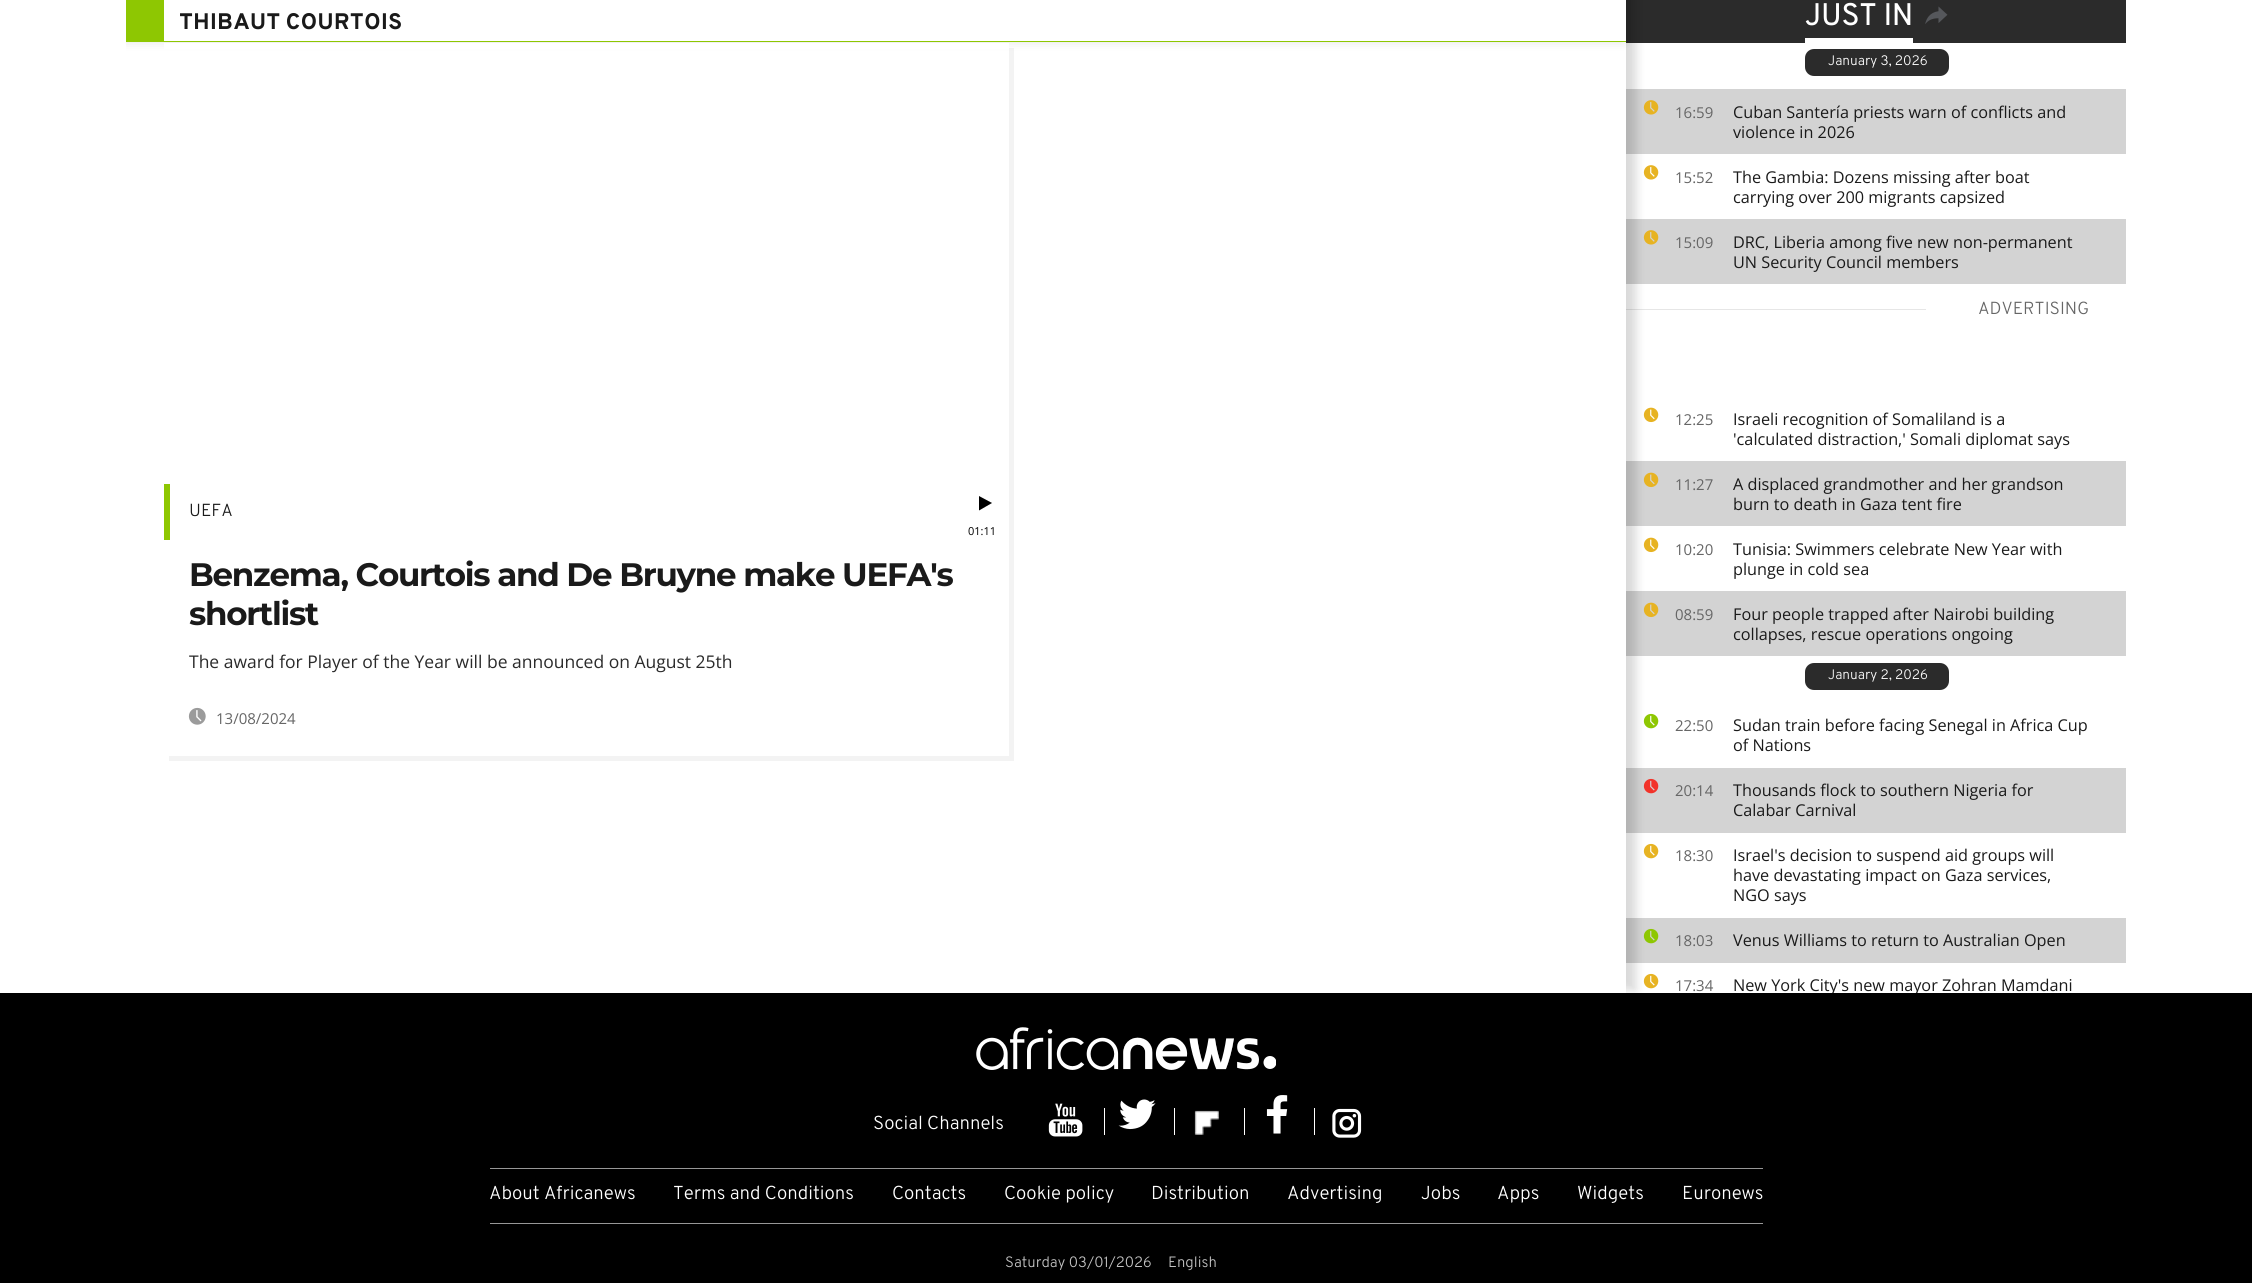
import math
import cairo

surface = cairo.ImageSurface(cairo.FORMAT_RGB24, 2252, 1283)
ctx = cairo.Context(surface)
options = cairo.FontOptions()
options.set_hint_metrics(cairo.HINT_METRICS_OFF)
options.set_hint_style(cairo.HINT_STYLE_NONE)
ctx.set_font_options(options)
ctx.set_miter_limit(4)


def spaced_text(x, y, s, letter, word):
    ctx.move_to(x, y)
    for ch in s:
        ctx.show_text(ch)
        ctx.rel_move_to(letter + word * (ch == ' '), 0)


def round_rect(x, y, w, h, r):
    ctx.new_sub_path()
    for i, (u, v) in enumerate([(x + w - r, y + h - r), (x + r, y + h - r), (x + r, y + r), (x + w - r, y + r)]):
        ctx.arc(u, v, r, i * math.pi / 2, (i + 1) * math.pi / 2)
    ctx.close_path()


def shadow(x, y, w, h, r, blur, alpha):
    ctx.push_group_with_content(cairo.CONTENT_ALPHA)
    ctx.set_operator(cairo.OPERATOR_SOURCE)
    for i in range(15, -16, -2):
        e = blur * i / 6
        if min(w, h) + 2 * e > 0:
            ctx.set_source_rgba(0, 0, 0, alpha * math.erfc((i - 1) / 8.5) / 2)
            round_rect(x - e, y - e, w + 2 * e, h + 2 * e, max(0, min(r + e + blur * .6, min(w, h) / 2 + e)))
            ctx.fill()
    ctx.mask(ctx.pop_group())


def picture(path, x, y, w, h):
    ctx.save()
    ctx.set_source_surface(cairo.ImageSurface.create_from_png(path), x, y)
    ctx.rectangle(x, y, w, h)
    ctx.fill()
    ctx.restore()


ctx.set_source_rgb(1, 1, 1)
ctx.paint()
ctx.set_source_rgb(0.169, 0.169, 0.169)
ctx.rectangle(1626, 0, 500, 43)
ctx.fill()
ctx.set_source_rgb(0.827, 0.827, 0.827)
ctx.rectangle(1626, 89, 500, 65)
ctx.fill()
picture("img3.png", 1643, 100, 16, 15)
picture("img4.png", 1643, 165, 16, 15)
ctx.rectangle(1626, 219, 500, 65)
ctx.fill()
picture("img3.png", 1643, 230, 16, 15)
ctx.set_source_rgb(0.902, 0.902, 0.902)
ctx.rectangle(1626, 309, 300, 1)
ctx.fill()
picture("img5.png", 1643, 407, 16, 16)
ctx.set_source_rgb(0.827, 0.827, 0.827)
ctx.rectangle(1626, 461, 500, 65)
ctx.fill()
picture("img6.png", 1643, 472, 16, 16)
picture("img5.png", 1643, 537, 16, 16)
ctx.rectangle(1626, 591, 500, 65)
ctx.fill()
picture("img6.png", 1643, 602, 16, 16)
picture("img7.png", 1643, 713, 16, 16)
ctx.rectangle(1626, 768, 500, 65)
ctx.fill()
picture("img8.png", 1643, 778, 16, 16)
picture("img9.png", 1643, 843, 16, 16)
ctx.rectangle(1626, 918, 500, 45)
ctx.fill()
picture("img10.png", 1643, 928, 16, 16)
picture("img9.png", 1643, 973, 16, 16)
ctx.save()
ctx.set_fill_rule(cairo.FILL_RULE_EVEN_ODD)
ctx.new_path()
ctx.move_to(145, 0)
ctx.line_to(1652, 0)
ctx.line_to(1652, 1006)
ctx.line_to(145, 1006)
ctx.close_path()
ctx.move_to(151, -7)
ctx.line_to(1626, -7)
ctx.line_to(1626, 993)
ctx.line_to(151, 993)
ctx.close_path()
ctx.clip()
ctx.set_source_rgb(0, 0, 0)
shadow(161, -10, 1475, 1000, 0, 5, 0.15)
ctx.restore()
ctx.save()
ctx.rectangle(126, 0, 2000, 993)
ctx.clip()
ctx.set_source_rgb(0, 0, 0)
shadow(124, -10, 1500, 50, 0, 6, 0.15)
ctx.restore()
ctx.set_source_rgb(0.557, 0.78, 0.008)
ctx.rectangle(126, 41, 1500, 1)
ctx.fill()
ctx.set_source_rgb(1, 1, 1)
ctx.rectangle(164, 0, 1462, 41)
ctx.fill()
ctx.set_source_rgb(0.557, 0.78, 0.008)
ctx.rectangle(126, 0, 38, 41)
ctx.fill()
ctx.select_font_face("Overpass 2", cairo.FONT_SLANT_NORMAL, cairo.FONT_WEIGHT_BOLD)
ctx.set_font_size(22.5)
ctx.set_source_rgb(0.102, 0.102, 0.102)
ctx.move_to(179, 29)
ctx.show_text("THIBAUT COURTOIS")
ctx.set_source_rgba(0, 0, 0, 0.05)
ctx.new_path()
ctx.move_to(169, 756)
ctx.line_to(169, 761)
ctx.line_to(1014, 761)
ctx.line_to(1014, 48)
ctx.line_to(1009, 48)
ctx.line_to(1009, 756)
ctx.close_path()
ctx.fill()
ctx.set_source_rgb(1, 1, 1)
ctx.rectangle(164, 43, 845, 6)
ctx.fill()
ctx.set_source_rgb(0.557, 0.78, 0.008)
ctx.rectangle(164, 484, 6, 56)
ctx.fill()
ctx.select_font_face("Overpass Light")
ctx.set_font_size(17.5)
ctx.set_source_rgb(0.102, 0.102, 0.102)
ctx.move_to(189, 516)
ctx.show_text("UEFA")
ctx.select_font_face("Montserrat Thin")
ctx.set_font_size(32.5)
spaced_text(189, 586, "Benzema, Courtois and De Bruyne make UEFA's", -1.25, 0)
spaced_text(189, 625, "shortlist", -1.25, 0)
ctx.select_font_face("Open Sans")
ctx.set_font_size(17.5)
ctx.set_source_rgb(0.169, 0.169, 0.169)
ctx.move_to(189, 668)
ctx.show_text("The award for Player of the Year will be announced on August 25th")
picture("img1.png", 188, 707, 18, 18)
ctx.set_font_size(15)
ctx.set_source_rgb(0.4, 0.4, 0.4)
ctx.move_to(216, 724)
ctx.show_text("13/08/2024")
ctx.set_source_rgb(0, 0, 0)
ctx.new_path()
ctx.move_to(992, 503)
ctx.line_to(979, 510.5)
ctx.line_to(979, 496)
ctx.close_path()
ctx.fill()
ctx.set_font_size(11)
ctx.move_to(968, 535)
ctx.show_text("01:11")
ctx.select_font_face("Overpass", cairo.FONT_SLANT_NORMAL, cairo.FONT_WEIGHT_BOLD)
ctx.set_font_size(30)
ctx.set_source_rgb(1, 1, 1)
ctx.move_to(1805, 25)
ctx.show_text("JUST IN")
ctx.rectangle(1805, 38, 108, 5)
ctx.fill()
picture("img2.png", 1925, 6, 23, 18)
ctx.set_source_rgb(0.169, 0.169, 0.169)
round_rect(1805, 49, 144, 27, 9)
ctx.fill()
ctx.select_font_face("Overpass Light")
ctx.set_font_size(13.75)
ctx.set_source_rgb(1, 1, 1)
ctx.move_to(1828, 65)
ctx.show_text("January 3, 2026")
ctx.select_font_face("Open Sans")
ctx.set_font_size(15)
ctx.set_source_rgb(0.4, 0.4, 0.4)
ctx.move_to(1675, 118)
ctx.show_text("16:59")
ctx.set_font_size(16.25)
ctx.set_source_rgb(0.102, 0.102, 0.102)
ctx.move_to(1733, 118)
ctx.show_text("Cuban Santería priests warn of conflicts and")
ctx.move_to(1733, 138)
ctx.show_text("violence in 2026")
ctx.set_font_size(15)
ctx.set_source_rgb(0.4, 0.4, 0.4)
ctx.move_to(1675, 183)
ctx.show_text("15:52")
ctx.set_font_size(16.25)
ctx.set_source_rgb(0.102, 0.102, 0.102)
ctx.move_to(1733, 183)
ctx.show_text("The Gambia: Dozens missing after boat")
ctx.move_to(1733, 203)
ctx.show_text("carrying over 200 migrants capsized")
ctx.set_font_size(15)
ctx.set_source_rgb(0.4, 0.4, 0.4)
ctx.move_to(1675, 248)
ctx.show_text("15:09")
ctx.set_font_size(16.25)
ctx.set_source_rgb(0.102, 0.102, 0.102)
ctx.move_to(1733, 248)
ctx.show_text("DRC, Liberia among five new non-permanent")
ctx.move_to(1733, 268)
ctx.show_text("UN Security Council members")
ctx.select_font_face("Overpass Light")
ctx.set_font_size(17.5)
ctx.set_source_rgb(0.4, 0.4, 0.4)
ctx.move_to(1978, 314)
ctx.show_text("ADVERTISING")
ctx.select_font_face("Open Sans")
ctx.set_font_size(15)
ctx.move_to(1675, 425)
ctx.show_text("12:25")
ctx.set_font_size(16.25)
ctx.set_source_rgb(0.102, 0.102, 0.102)
ctx.move_to(1733, 425)
ctx.show_text("Israeli recognition of Somaliland is a")
ctx.move_to(1733, 445)
ctx.show_text("'calculated distraction,' Somali diplomat says")
ctx.set_font_size(15)
ctx.set_source_rgb(0.4, 0.4, 0.4)
ctx.move_to(1675, 490)
ctx.show_text("11:27")
ctx.set_font_size(16.25)
ctx.set_source_rgb(0.102, 0.102, 0.102)
ctx.move_to(1733, 490)
ctx.show_text("A displaced grandmother and her grandson")
ctx.move_to(1733, 510)
ctx.show_text("burn to death in Gaza tent fire")
ctx.set_font_size(15)
ctx.set_source_rgb(0.4, 0.4, 0.4)
ctx.move_to(1675, 555)
ctx.show_text("10:20")
ctx.set_font_size(16.25)
ctx.set_source_rgb(0.102, 0.102, 0.102)
ctx.move_to(1733, 555)
ctx.show_text("Tunisia: Swimmers celebrate New Year with")
ctx.move_to(1733, 575)
ctx.show_text("plunge in cold sea")
ctx.set_font_size(15)
ctx.set_source_rgb(0.4, 0.4, 0.4)
ctx.move_to(1675, 620)
ctx.show_text("08:59")
ctx.set_font_size(16.25)
ctx.set_source_rgb(0.102, 0.102, 0.102)
ctx.move_to(1733, 620)
ctx.show_text("Four people trapped after Nairobi building")
ctx.move_to(1733, 640)
ctx.show_text("collapses, rescue operations ongoing")
ctx.set_source_rgb(0.169, 0.169, 0.169)
round_rect(1805, 663, 144, 27, 9)
ctx.fill()
ctx.select_font_face("Overpass Light")
ctx.set_font_size(13.75)
ctx.set_source_rgb(1, 1, 1)
ctx.move_to(1828, 679)
ctx.show_text("January 2, 2026")
ctx.select_font_face("Open Sans")
ctx.set_font_size(15)
ctx.set_source_rgb(0.4, 0.4, 0.4)
ctx.move_to(1675, 731)
ctx.show_text("22:50")
ctx.set_font_size(16.25)
ctx.set_source_rgb(0.102, 0.102, 0.102)
ctx.move_to(1733, 731)
ctx.show_text("Sudan train before facing Senegal in Africa Cup")
ctx.move_to(1733, 751)
ctx.show_text("of Nations")
ctx.set_font_size(15)
ctx.set_source_rgb(0.4, 0.4, 0.4)
ctx.move_to(1675, 796)
ctx.show_text("20:14")
ctx.set_font_size(16.25)
ctx.set_source_rgb(0.102, 0.102, 0.102)
ctx.move_to(1733, 796)
ctx.show_text("Thousands flock to southern Nigeria for")
ctx.move_to(1733, 816)
ctx.show_text("Calabar Carnival")
ctx.set_font_size(15)
ctx.set_source_rgb(0.4, 0.4, 0.4)
ctx.move_to(1675, 861)
ctx.show_text("18:30")
ctx.set_font_size(16.25)
ctx.set_source_rgb(0.102, 0.102, 0.102)
ctx.move_to(1733, 861)
ctx.show_text("Israel's decision to suspend aid groups will")
ctx.move_to(1733, 881)
ctx.show_text("have devastating impact on Gaza services,")
ctx.move_to(1733, 901)
ctx.show_text("NGO says")
ctx.set_font_size(15)
ctx.set_source_rgb(0.4, 0.4, 0.4)
ctx.move_to(1675, 946)
ctx.show_text("18:03")
ctx.set_font_size(16.25)
ctx.set_source_rgb(0.102, 0.102, 0.102)
ctx.move_to(1733, 946)
ctx.show_text("Venus Williams to return to Australian Open")
ctx.set_font_size(15)
ctx.set_source_rgb(0.4, 0.4, 0.4)
ctx.move_to(1675, 991)
ctx.show_text("17:34")
ctx.set_font_size(16.25)
ctx.set_source_rgb(0.102, 0.102, 0.102)
ctx.move_to(1733, 991)
ctx.show_text("New York City's new mayor Zohran Mamdani")
ctx.set_source_rgb(0, 0, 0)
ctx.rectangle(0, 993, 2252, 290)
ctx.fill()
picture("img11.png", 976, 1027, 300, 43)
ctx.select_font_face("Overpass Light")
ctx.set_font_size(18.75)
ctx.set_source_rgb(1, 1, 1)
ctx.move_to(873, 1129)
ctx.show_text("Social Channels")
picture("img12.png", 1048, 1103, 35, 34)
ctx.rectangle(1104, 1108, 1, 27)
ctx.fill()
ctx.rectangle(1174, 1108, 1, 27)
ctx.fill()
picture("img13.png", 1118, 1099, 38, 31)
picture("img14.png", 1194, 1110, 25, 25)
ctx.rectangle(1244, 1108, 1, 27)
ctx.fill()
ctx.rectangle(1314, 1108, 1, 27)
ctx.fill()
picture("img15.png", 1266, 1095, 22, 39)
picture("img16.png", 1332, 1108, 30, 30)
ctx.set_source_rgb(0.592, 0.592, 0.592)
ctx.rectangle(490, 1168, 1273, 1)
ctx.fill()
ctx.rectangle(490, 1223, 1273, 1)
ctx.fill()
ctx.set_source_rgb(1, 1, 1)
ctx.move_to(489, 1199)
ctx.show_text("About Africanews")
ctx.move_to(673, 1199)
ctx.show_text("Terms and Conditions")
ctx.move_to(892, 1199)
ctx.show_text("Contacts")
ctx.move_to(1004, 1199)
ctx.show_text("Cookie policy")
ctx.move_to(1151, 1199)
ctx.show_text("Distribution")
ctx.move_to(1287, 1199)
ctx.show_text("Advertising")
ctx.move_to(1421, 1199)
ctx.show_text("Jobs")
ctx.move_to(1497, 1199)
ctx.show_text("Apps")
ctx.move_to(1577, 1199)
ctx.show_text("Widgets")
ctx.move_to(1682, 1199)
ctx.show_text("Euronews")
ctx.set_font_size(15)
ctx.set_source_rgb(0.761, 0.761, 0.761)
ctx.move_to(1005, 1267)
ctx.show_text("Saturday 03/01/2026")
ctx.move_to(1168, 1267)
ctx.show_text("English")
surface.write_to_png("page.png")
